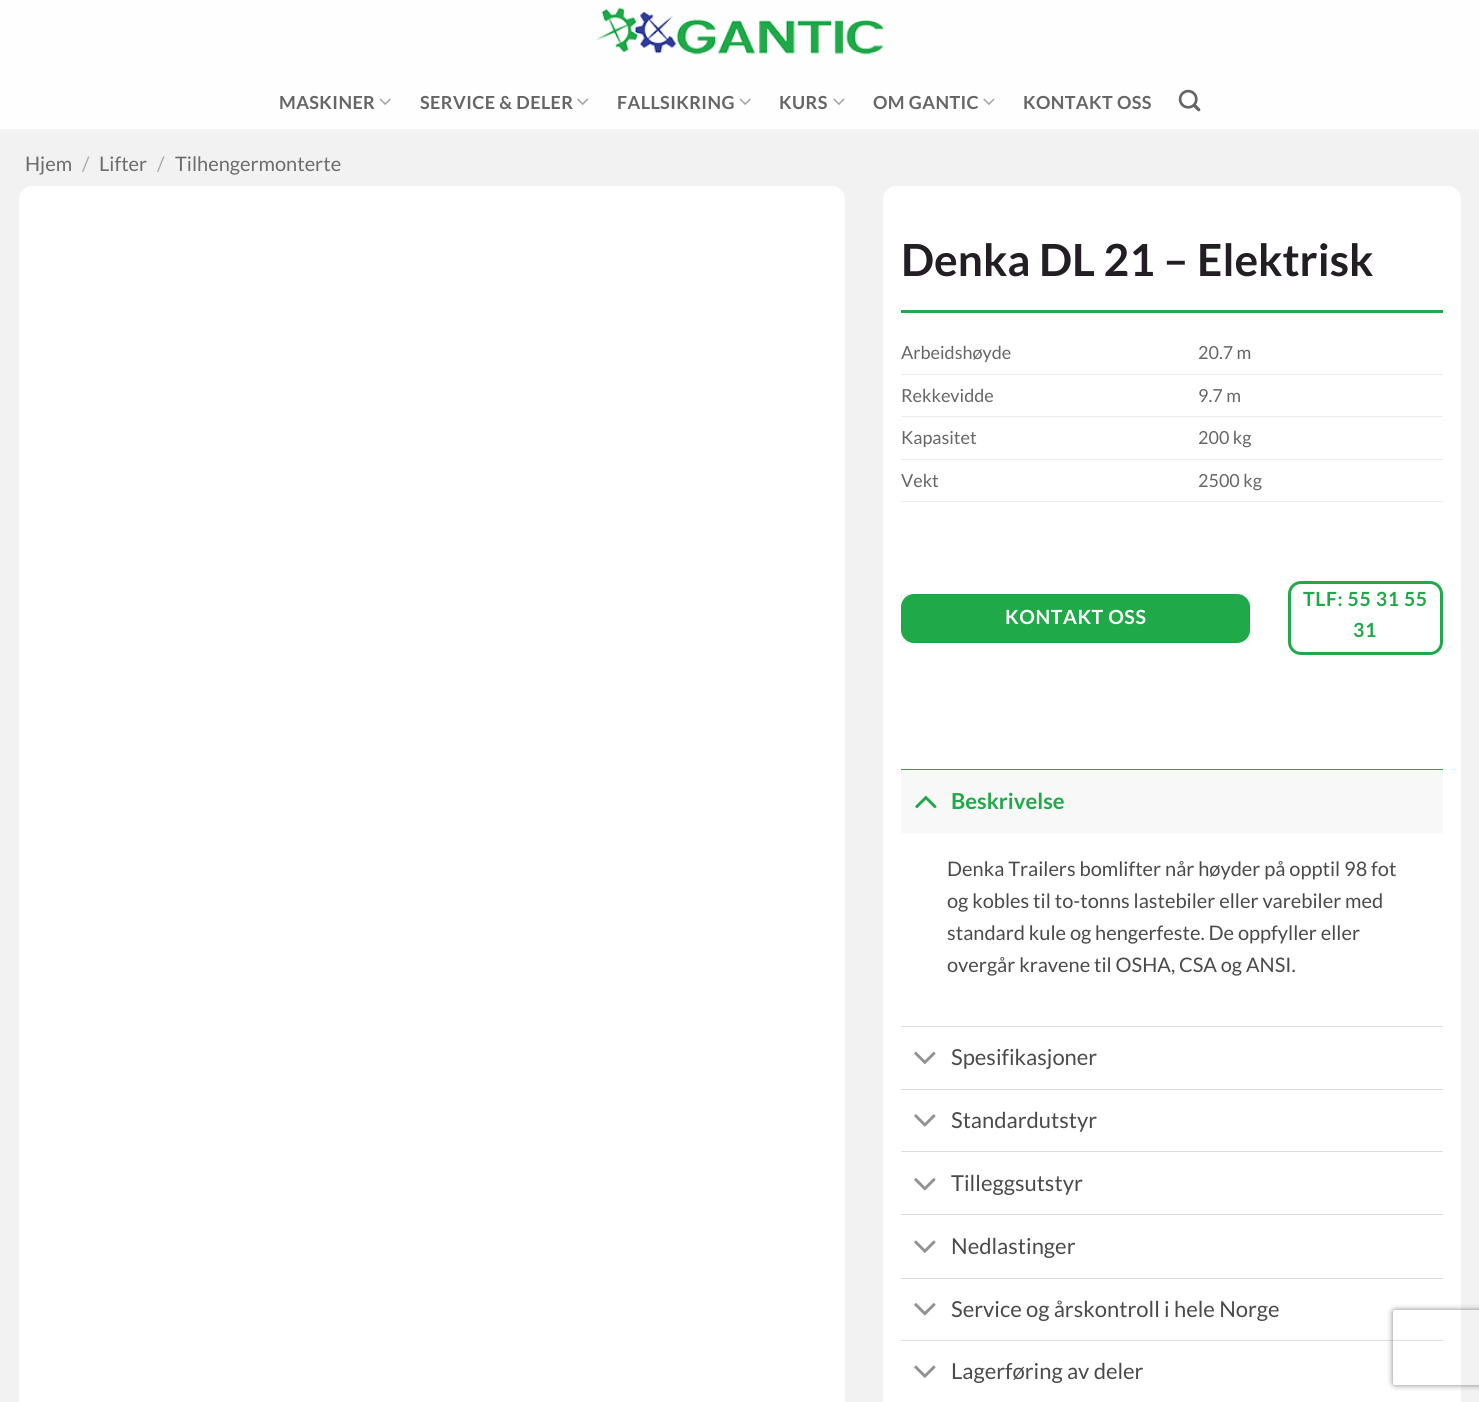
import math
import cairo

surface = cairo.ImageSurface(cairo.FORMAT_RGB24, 1479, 1402)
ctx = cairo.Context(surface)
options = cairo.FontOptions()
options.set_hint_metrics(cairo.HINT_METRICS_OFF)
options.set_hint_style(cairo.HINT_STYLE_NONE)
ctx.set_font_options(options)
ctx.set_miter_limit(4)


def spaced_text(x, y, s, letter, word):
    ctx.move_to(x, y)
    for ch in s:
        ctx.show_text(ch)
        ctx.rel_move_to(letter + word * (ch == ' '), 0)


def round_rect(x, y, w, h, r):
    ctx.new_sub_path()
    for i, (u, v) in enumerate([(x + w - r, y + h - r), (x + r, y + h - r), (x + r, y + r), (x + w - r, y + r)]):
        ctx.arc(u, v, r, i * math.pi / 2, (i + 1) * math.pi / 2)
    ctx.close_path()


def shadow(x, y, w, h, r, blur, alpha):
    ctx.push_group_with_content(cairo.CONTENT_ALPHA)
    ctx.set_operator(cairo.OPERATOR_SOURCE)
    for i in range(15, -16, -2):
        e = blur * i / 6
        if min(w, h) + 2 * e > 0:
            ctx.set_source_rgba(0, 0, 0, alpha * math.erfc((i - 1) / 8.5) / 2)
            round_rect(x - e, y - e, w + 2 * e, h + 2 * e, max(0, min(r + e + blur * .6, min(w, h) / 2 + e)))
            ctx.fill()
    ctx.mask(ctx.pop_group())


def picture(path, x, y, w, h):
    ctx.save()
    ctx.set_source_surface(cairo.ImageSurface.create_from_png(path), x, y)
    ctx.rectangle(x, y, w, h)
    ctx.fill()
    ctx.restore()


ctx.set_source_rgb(0.949, 0.949, 0.949)
ctx.paint()
ctx.set_source_rgb(0.996, 0.996, 0.996)
ctx.rectangle(0, 0, 1479, 129)
ctx.fill()
picture("img1.png", 596, 7, 288, 48)
ctx.select_font_face("Lato", cairo.FONT_SLANT_NORMAL, cairo.FONT_WEIGHT_BOLD)
ctx.set_font_size(18)
ctx.set_source_rgb(0.4, 0.4, 0.4)
spaced_text(279, 109, "MASKINER", 0.4, 0)
picture("img2.png", 379, 98, 12, 7)
spaced_text(420, 109, "SERVICE & DELER", 0.4, 0)
picture("img3.png", 577, 98, 12, 7)
spaced_text(617, 109, "FALLSIKRING", 0.4, 0)
picture("img2.png", 739, 98, 12, 7)
spaced_text(779, 109, "KURS", 0.4, 0)
picture("img4.png", 833, 98, 12, 7)
spaced_text(873, 109, "OM GANTIC", 0.4, 0)
picture("img4.png", 983, 98, 12, 7)
spaced_text(1023, 109, "KONTAKT OSS", 0.4, 0)
picture("img5.png", 1178, 89, 23, 23)
ctx.select_font_face("Lato")
ctx.set_font_size(20)
ctx.set_source_rgb(0.424, 0.424, 0.424)
ctx.move_to(25, 171)
ctx.show_text("Hjem")
ctx.set_source_rgb(0.663, 0.663, 0.663)
ctx.move_to(82, 171)
ctx.show_text("/")
ctx.set_source_rgb(0.424, 0.424, 0.424)
ctx.move_to(99, 171)
ctx.show_text("Lifter")
ctx.set_source_rgb(0.663, 0.663, 0.663)
ctx.move_to(157, 171)
ctx.show_text("/")
ctx.set_source_rgb(0.424, 0.424, 0.424)
ctx.move_to(175, 171)
ctx.show_text("Tilhengermonterte")
ctx.set_source_rgb(1, 1, 1)
round_rect(19, 186, 826, 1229, 13)
ctx.fill()
round_rect(883, 186, 578, 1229, 13)
ctx.fill()
ctx.select_font_face("Lato", cairo.FONT_SLANT_NORMAL, cairo.FONT_WEIGHT_BOLD)
ctx.set_font_size(44.25)
ctx.set_source_rgb(0.133, 0.118, 0.141)
ctx.move_to(901, 276)
ctx.show_text("Denka DL 21 – Elektrisk")
ctx.set_source_rgb(0.122, 0.663, 0.282)
ctx.rectangle(901, 310, 542, 3)
ctx.fill()
ctx.set_source_rgb(0.925, 0.925, 0.925)
ctx.rectangle(901, 374, 542, 1)
ctx.fill()
ctx.select_font_face("Lato")
ctx.set_font_size(18)
ctx.set_source_rgb(0.4, 0.4, 0.4)
ctx.move_to(901, 359)
ctx.show_text("Arbeidshøyde")
ctx.move_to(1198, 359)
ctx.show_text("20.7 m")
ctx.set_source_rgb(0.925, 0.925, 0.925)
ctx.rectangle(901, 416, 542, 1)
ctx.fill()
ctx.set_source_rgb(0.4, 0.4, 0.4)
ctx.move_to(901, 402)
ctx.show_text("Rekkevidde")
ctx.move_to(1198, 402)
ctx.show_text("9.7 m")
ctx.set_source_rgb(0.925, 0.925, 0.925)
ctx.rectangle(901, 459, 542, 1)
ctx.fill()
ctx.set_source_rgb(0.4, 0.4, 0.4)
ctx.move_to(901, 444)
ctx.show_text("Kapasitet")
ctx.move_to(1198, 444)
ctx.show_text("200 kg")
ctx.set_source_rgb(0.925, 0.925, 0.925)
ctx.rectangle(901, 501, 542, 1)
ctx.fill()
ctx.set_source_rgb(0.4, 0.4, 0.4)
ctx.move_to(901, 487)
ctx.show_text("Vekt")
ctx.move_to(1198, 487)
ctx.show_text("2500 kg")
ctx.set_source_rgb(0.122, 0.663, 0.282)
round_rect(901, 594, 349, 49, 13)
ctx.fill()
ctx.rectangle(901.5, 594.5, 348, 48)
ctx.set_source_rgba(0, 0, 0, 0.05)
ctx.set_line_width(1)
ctx.stroke()
ctx.select_font_face("Lato", cairo.FONT_SLANT_NORMAL, cairo.FONT_WEIGHT_BOLD)
ctx.set_font_size(19.5)
ctx.set_source_rgb(1, 1, 1)
spaced_text(1005, 624, "KONTAKT OSS", 0.6, 0)
round_rect(1289.5, 582.5, 152, 71, 11.5)
ctx.set_source_rgb(0.122, 0.663, 0.282)
ctx.set_line_width(3)
ctx.stroke()
spaced_text(1303, 606, "TLF: 55 31 55", 0.6, 0)
spaced_text(1353, 637, "31", 0.6, 0)
ctx.set_source_rgb(0.969, 0.969, 0.969)
ctx.rectangle(901, 770, 542, 63)
ctx.fill()
ctx.set_source_rgb(0.122, 0.663, 0.282)
ctx.rectangle(901, 769, 542, 1)
ctx.fill()
picture("img6.png", 915, 795, 22, 14)
ctx.set_font_size(22)
ctx.move_to(951, 809)
ctx.show_text("Beskrivelse")
ctx.select_font_face("Lato")
ctx.set_font_size(20)
ctx.set_source_rgb(0.29, 0.29, 0.29)
ctx.move_to(947, 876)
ctx.show_text("Denka Trailers bomlifter når høyder på opptil 98 fot")
ctx.move_to(947, 908)
ctx.show_text("og kobles til to-tonns lastebiler eller varebiler med")
ctx.move_to(947, 940)
ctx.show_text("standard kule og hengerfeste. De oppfyller eller")
ctx.move_to(947, 972)
ctx.show_text("overgår kravene til OSHA, CSA og ANSI.")
ctx.set_source_rgb(0.867, 0.867, 0.867)
ctx.rectangle(901, 1026, 542, 1)
ctx.fill()
picture("img7.png", 914, 1051, 22, 14)
ctx.set_font_size(22)
ctx.set_source_rgb(0.29, 0.29, 0.29)
ctx.move_to(951, 1065)
ctx.show_text("Spesifikasjoner")
ctx.set_source_rgb(0.867, 0.867, 0.867)
ctx.rectangle(901, 1089, 542, 1)
ctx.fill()
picture("img8.png", 914, 1114, 22, 13)
ctx.set_source_rgb(0.29, 0.29, 0.29)
ctx.move_to(951, 1128)
ctx.show_text("Standardutstyr")
ctx.set_source_rgb(0.867, 0.867, 0.867)
ctx.rectangle(901, 1151, 542, 1)
ctx.fill()
picture("img9.png", 914, 1178, 22, 13)
ctx.set_source_rgb(0.29, 0.29, 0.29)
ctx.move_to(951, 1191)
ctx.show_text("Tilleggsutstyr")
ctx.set_source_rgb(0.867, 0.867, 0.867)
ctx.rectangle(901, 1214, 542, 1)
ctx.fill()
picture("img10.png", 914, 1240, 22, 13)
ctx.set_source_rgb(0.29, 0.29, 0.29)
ctx.move_to(951, 1254)
ctx.show_text("Nedlastinger")
ctx.set_source_rgb(0.867, 0.867, 0.867)
ctx.rectangle(901, 1278, 542, 1)
ctx.fill()
picture("img9.png", 914, 1303, 22, 13)
ctx.set_source_rgb(0.29, 0.29, 0.29)
ctx.move_to(951, 1317)
ctx.show_text("Service og årskontroll i hele Norge")
ctx.set_source_rgb(0.867, 0.867, 0.867)
ctx.rectangle(901, 1340, 542, 1)
ctx.fill()
picture("img10.png", 914, 1365, 22, 13)
ctx.set_source_rgb(0.29, 0.29, 0.29)
ctx.move_to(951, 1379)
ctx.show_text("Lagerføring av deler")
ctx.save()
ctx.set_fill_rule(cairo.FILL_RULE_EVEN_ODD)
ctx.new_path()
ctx.move_to(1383, 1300)
ctx.line_to(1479, 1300)
ctx.line_to(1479, 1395)
ctx.line_to(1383, 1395)
ctx.close_path()
ctx.move_to(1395.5, 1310)
ctx.line_to(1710.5, 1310)
ctx.curve_to(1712, 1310, 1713, 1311, 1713, 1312.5)
ctx.line_to(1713, 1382.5)
ctx.curve_to(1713, 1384, 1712, 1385, 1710.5, 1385)
ctx.line_to(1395.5, 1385)
ctx.curve_to(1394, 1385, 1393, 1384, 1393, 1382.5)
ctx.line_to(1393, 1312.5)
ctx.curve_to(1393, 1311, 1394, 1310, 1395.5, 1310)
ctx.close_path()
ctx.clip()
ctx.set_source_rgb(0.502, 0.502, 0.502)
shadow(1393, 1310, 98, 75, 2.5, 3, 1)
ctx.restore()
surface.write_to_png("page.png")
